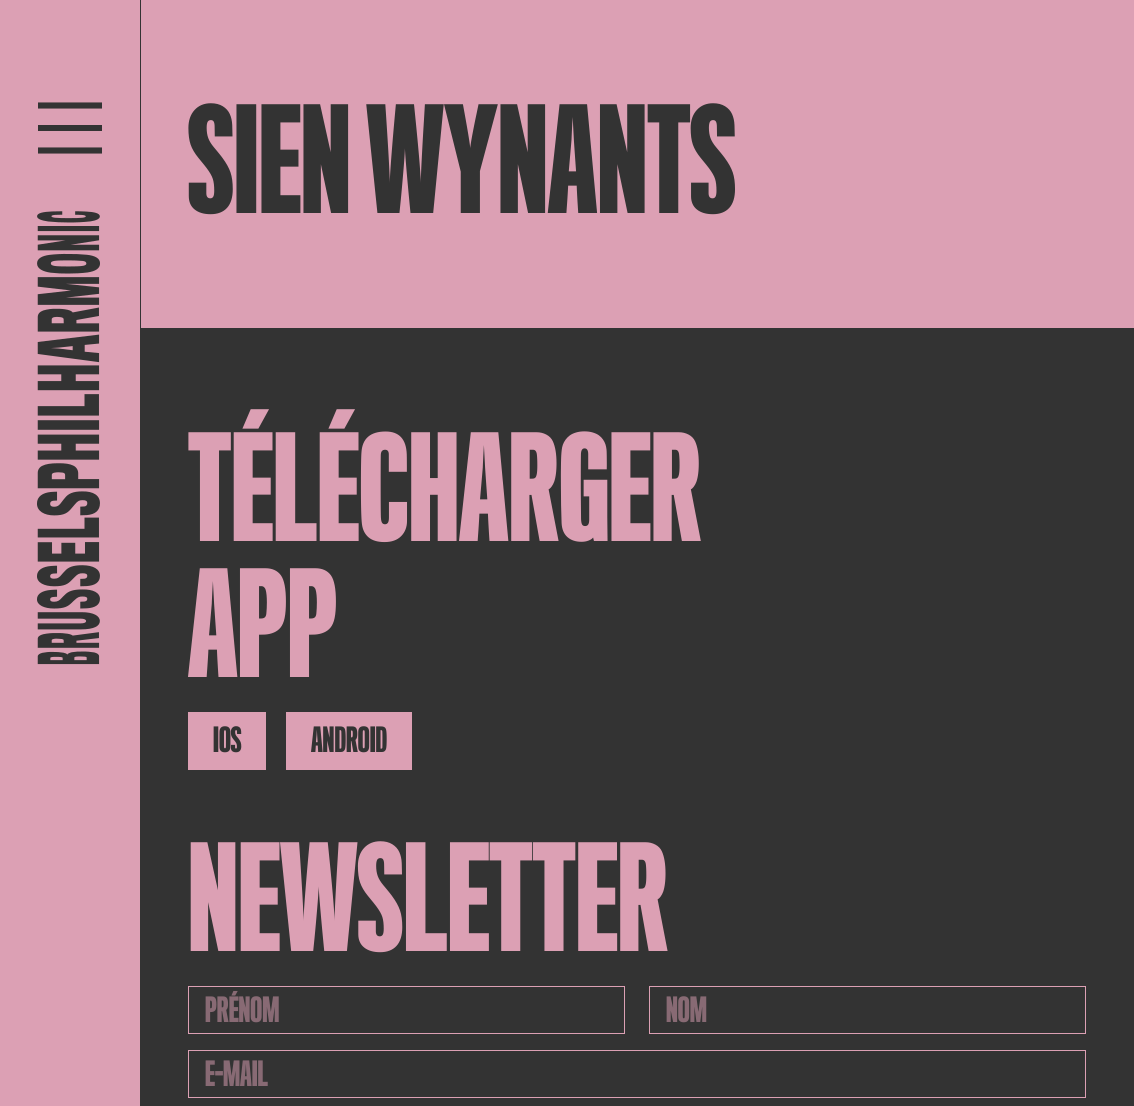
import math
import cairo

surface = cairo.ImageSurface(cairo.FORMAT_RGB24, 1134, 1106)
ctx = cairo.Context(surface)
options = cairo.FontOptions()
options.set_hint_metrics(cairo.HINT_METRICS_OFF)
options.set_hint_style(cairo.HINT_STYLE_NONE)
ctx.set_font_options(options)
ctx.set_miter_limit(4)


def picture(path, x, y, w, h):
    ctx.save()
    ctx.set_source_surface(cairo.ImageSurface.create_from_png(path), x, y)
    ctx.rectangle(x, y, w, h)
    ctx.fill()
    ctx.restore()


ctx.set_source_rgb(0.863, 0.627, 0.706)
ctx.paint()
ctx.new_path()
ctx.move_to(38, 105.5)
ctx.line_to(102, 105.5)
ctx.set_source_rgb(0.2, 0.2, 0.2)
ctx.set_line_width(6.1)
ctx.stroke()
ctx.rectangle(38, 125, 64, 6)
ctx.fill()
ctx.new_path()
ctx.move_to(38, 150.5)
ctx.line_to(102, 150.5)
ctx.stroke()
picture("img1.png", 37, 211, 63, 454)
ctx.rectangle(140, 0, 1, 1106)
ctx.fill()
ctx.select_font_face("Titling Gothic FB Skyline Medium")
ctx.set_font_size(136)
ctx.move_to(188, 213)
ctx.show_text("SIEN WYNANTS")
ctx.rectangle(141, 328, 993, 778)
ctx.fill()
ctx.set_source_rgb(0.863, 0.627, 0.706)
ctx.move_to(188, 541)
ctx.show_text("TÉLÉCHARGER")
ctx.move_to(188, 677)
ctx.show_text("APP")
ctx.rectangle(188, 712, 78, 58)
ctx.fill()
ctx.set_font_size(32)
ctx.set_source_rgb(0.2, 0.2, 0.2)
ctx.move_to(213, 752)
ctx.show_text("IOS")
ctx.set_source_rgb(0.863, 0.627, 0.706)
ctx.rectangle(286, 712, 126, 58)
ctx.fill()
ctx.set_source_rgb(0.2, 0.2, 0.2)
ctx.move_to(311, 752)
ctx.show_text("ANDROID")
ctx.set_font_size(136)
ctx.set_source_rgb(0.863, 0.627, 0.706)
ctx.move_to(188, 951)
ctx.show_text("NEWSLETTER")
ctx.rectangle(188.5, 986.5, 436, 47)
ctx.set_line_width(1)
ctx.stroke()
ctx.set_font_size(32)
ctx.set_source_rgb(0.533, 0.416, 0.455)
ctx.move_to(205, 1022)
ctx.show_text("PRÉNOM")
ctx.rectangle(649.5, 986.5, 436, 47)
ctx.set_source_rgb(0.863, 0.627, 0.706)
ctx.stroke()
ctx.set_source_rgb(0.533, 0.416, 0.455)
ctx.move_to(666, 1022)
ctx.show_text("NOM")
ctx.rectangle(188.5, 1050.5, 897, 47)
ctx.set_source_rgb(0.863, 0.627, 0.706)
ctx.stroke()
ctx.set_source_rgb(0.533, 0.416, 0.455)
ctx.move_to(205, 1086)
ctx.show_text("E-MAIL")
surface.write_to_png("page.png")
